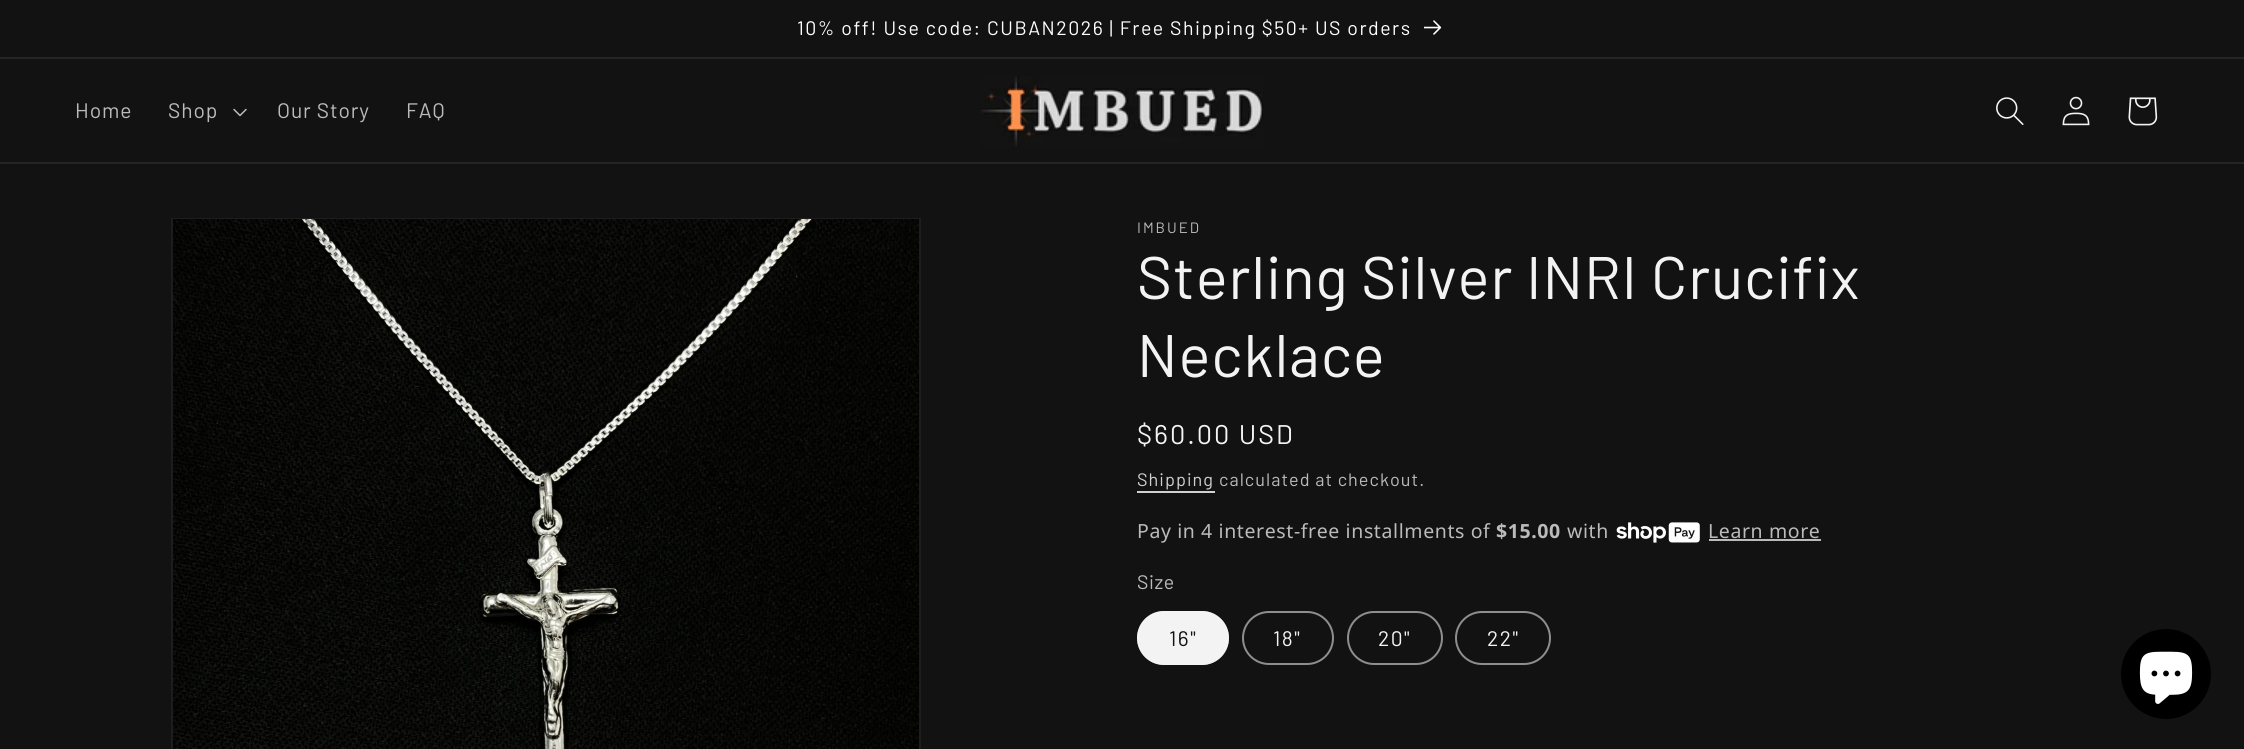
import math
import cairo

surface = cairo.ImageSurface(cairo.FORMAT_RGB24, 2244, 749)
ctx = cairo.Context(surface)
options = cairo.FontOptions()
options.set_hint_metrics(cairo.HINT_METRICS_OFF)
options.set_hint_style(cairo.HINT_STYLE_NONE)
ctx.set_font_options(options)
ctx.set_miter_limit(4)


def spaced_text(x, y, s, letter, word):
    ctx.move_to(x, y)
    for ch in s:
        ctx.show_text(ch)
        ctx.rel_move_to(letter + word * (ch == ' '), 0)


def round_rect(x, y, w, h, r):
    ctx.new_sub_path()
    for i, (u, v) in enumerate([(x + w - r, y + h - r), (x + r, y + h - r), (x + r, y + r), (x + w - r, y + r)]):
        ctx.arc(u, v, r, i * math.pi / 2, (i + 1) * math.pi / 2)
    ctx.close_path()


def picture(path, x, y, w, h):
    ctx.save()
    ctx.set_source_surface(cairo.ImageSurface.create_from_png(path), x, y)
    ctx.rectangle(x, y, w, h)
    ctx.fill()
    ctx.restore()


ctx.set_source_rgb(0.071, 0.071, 0.071)
ctx.paint()
ctx.set_source_rgb(0.145, 0.145, 0.145)
ctx.rectangle(0, 57, 2244, 2)
ctx.fill()
ctx.select_font_face("Barlow")
ctx.set_font_size(19.5)
ctx.set_source_rgb(1, 1, 1)
spaced_text(797, 35, "10% off! Use code: CUBAN2026 | Free Shipping $50+ US orders", 1.5, 0)
picture("img1.png", 1424, 20, 18, 15)
ctx.set_source_rgb(0.141, 0.141, 0.141)
ctx.rectangle(0, 162, 2244, 2)
ctx.fill()
ctx.set_font_size(21)
ctx.set_source_rgb(0.733, 0.733, 0.733)
spaced_text(75, 118, "Home", 0.9, 0)
spaced_text(168, 118, "Shop", 0.9, 0)
picture("img2.png", 233, 108, 14, 9)
spaced_text(277, 118, "Our Story", 0.9, 0)
spaced_text(406, 118, "FAQ", 0.9, 0)
picture("img3.png", 980, 76, 283, 71)
picture("img4.png", 1996, 97, 28, 28)
picture("img5.png", 2062, 96, 28, 30)
picture("img6.png", 2128, 97, 30, 29)
ctx.rectangle(172, 219, 748, 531)
ctx.set_source_rgb(0.114, 0.114, 0.114)
ctx.stroke()
picture("img7.png", 173, 219, 746, 530)
ctx.set_font_size(15)
ctx.set_source_rgb(0.733, 0.733, 0.733)
spaced_text(1137, 233, "IMBUED", 2, 0)
ctx.set_font_size(60)
ctx.set_source_rgb(0.953, 0.953, 0.953)
spaced_text(1137, 299, "Sterling Silver INRI Crucifix", 0.9, 0)
spaced_text(1137, 377, "Necklace", 0.9, 0)
ctx.set_font_size(27)
spaced_text(1137, 444, "$60.00 USD", 2, 0)
ctx.set_font_size(18)
ctx.set_source_rgb(0.82, 0.82, 0.82)
spaced_text(1137, 486, "Shipping", 1.05, 0)
ctx.rectangle(1137, 491, 78, 2)
ctx.fill()
ctx.set_source_rgb(0.733, 0.733, 0.733)
spaced_text(1219, 486, "calculated at checkout.", 1.05, 0)
ctx.select_font_face("Noto Sans")
ctx.set_font_size(19.5)
spaced_text(1137, 538, "Pay in 4 interest-free installments of", 0.6, 0)
ctx.select_font_face("Noto Sans", cairo.FONT_SLANT_NORMAL, cairo.FONT_WEIGHT_BOLD)
spaced_text(1496, 538, "$15.00", 0.6, 0)
ctx.select_font_face("Noto Sans")
spaced_text(1567, 538, "with", 0.6, 0)
picture("img8.png", 1616, 522, 84, 21)
spaced_text(1708, 538, "Learn more", 0.6, 0)
ctx.rectangle(1709, 539, 112, 2)
ctx.fill()
ctx.select_font_face("Barlow")
spaced_text(1137, 589, "Size", 0.6, 0)
ctx.set_source_rgb(0.953, 0.953, 0.953)
round_rect(1137, 611, 92, 54, 27)
ctx.fill()
round_rect(1138, 612, 90, 52, 26)
ctx.set_source_rgba(0.953, 0.953, 0.953, 0.55)
ctx.stroke()
ctx.set_font_size(21)
ctx.set_source_rgb(0.071, 0.071, 0.071)
spaced_text(1169, 646, "16\"", 1.5, 0)
round_rect(1243, 612, 90, 52, 26)
ctx.set_source_rgb(0.557, 0.557, 0.557)
ctx.stroke()
ctx.set_source_rgb(0.953, 0.953, 0.953)
spaced_text(1273, 646, "18\"", 1.5, 0)
round_rect(1348, 612, 94, 52, 26)
ctx.set_source_rgb(0.557, 0.557, 0.557)
ctx.stroke()
ctx.set_source_rgb(0.953, 0.953, 0.953)
spaced_text(1378, 646, "20\"", 1.5, 0)
round_rect(1456, 612, 94, 52, 26)
ctx.set_source_rgb(0.557, 0.557, 0.557)
ctx.stroke()
ctx.set_source_rgb(0.953, 0.953, 0.953)
spaced_text(1487, 646, "22\"", 1.5, 0)
ctx.set_source_rgb(0, 0, 0)
ctx.new_path()
ctx.arc(2166, 674, 45, 0, 2 * math.pi)
ctx.fill()
picture("img9.png", 2139, 651, 54, 53)
surface.write_to_png("page.png")
